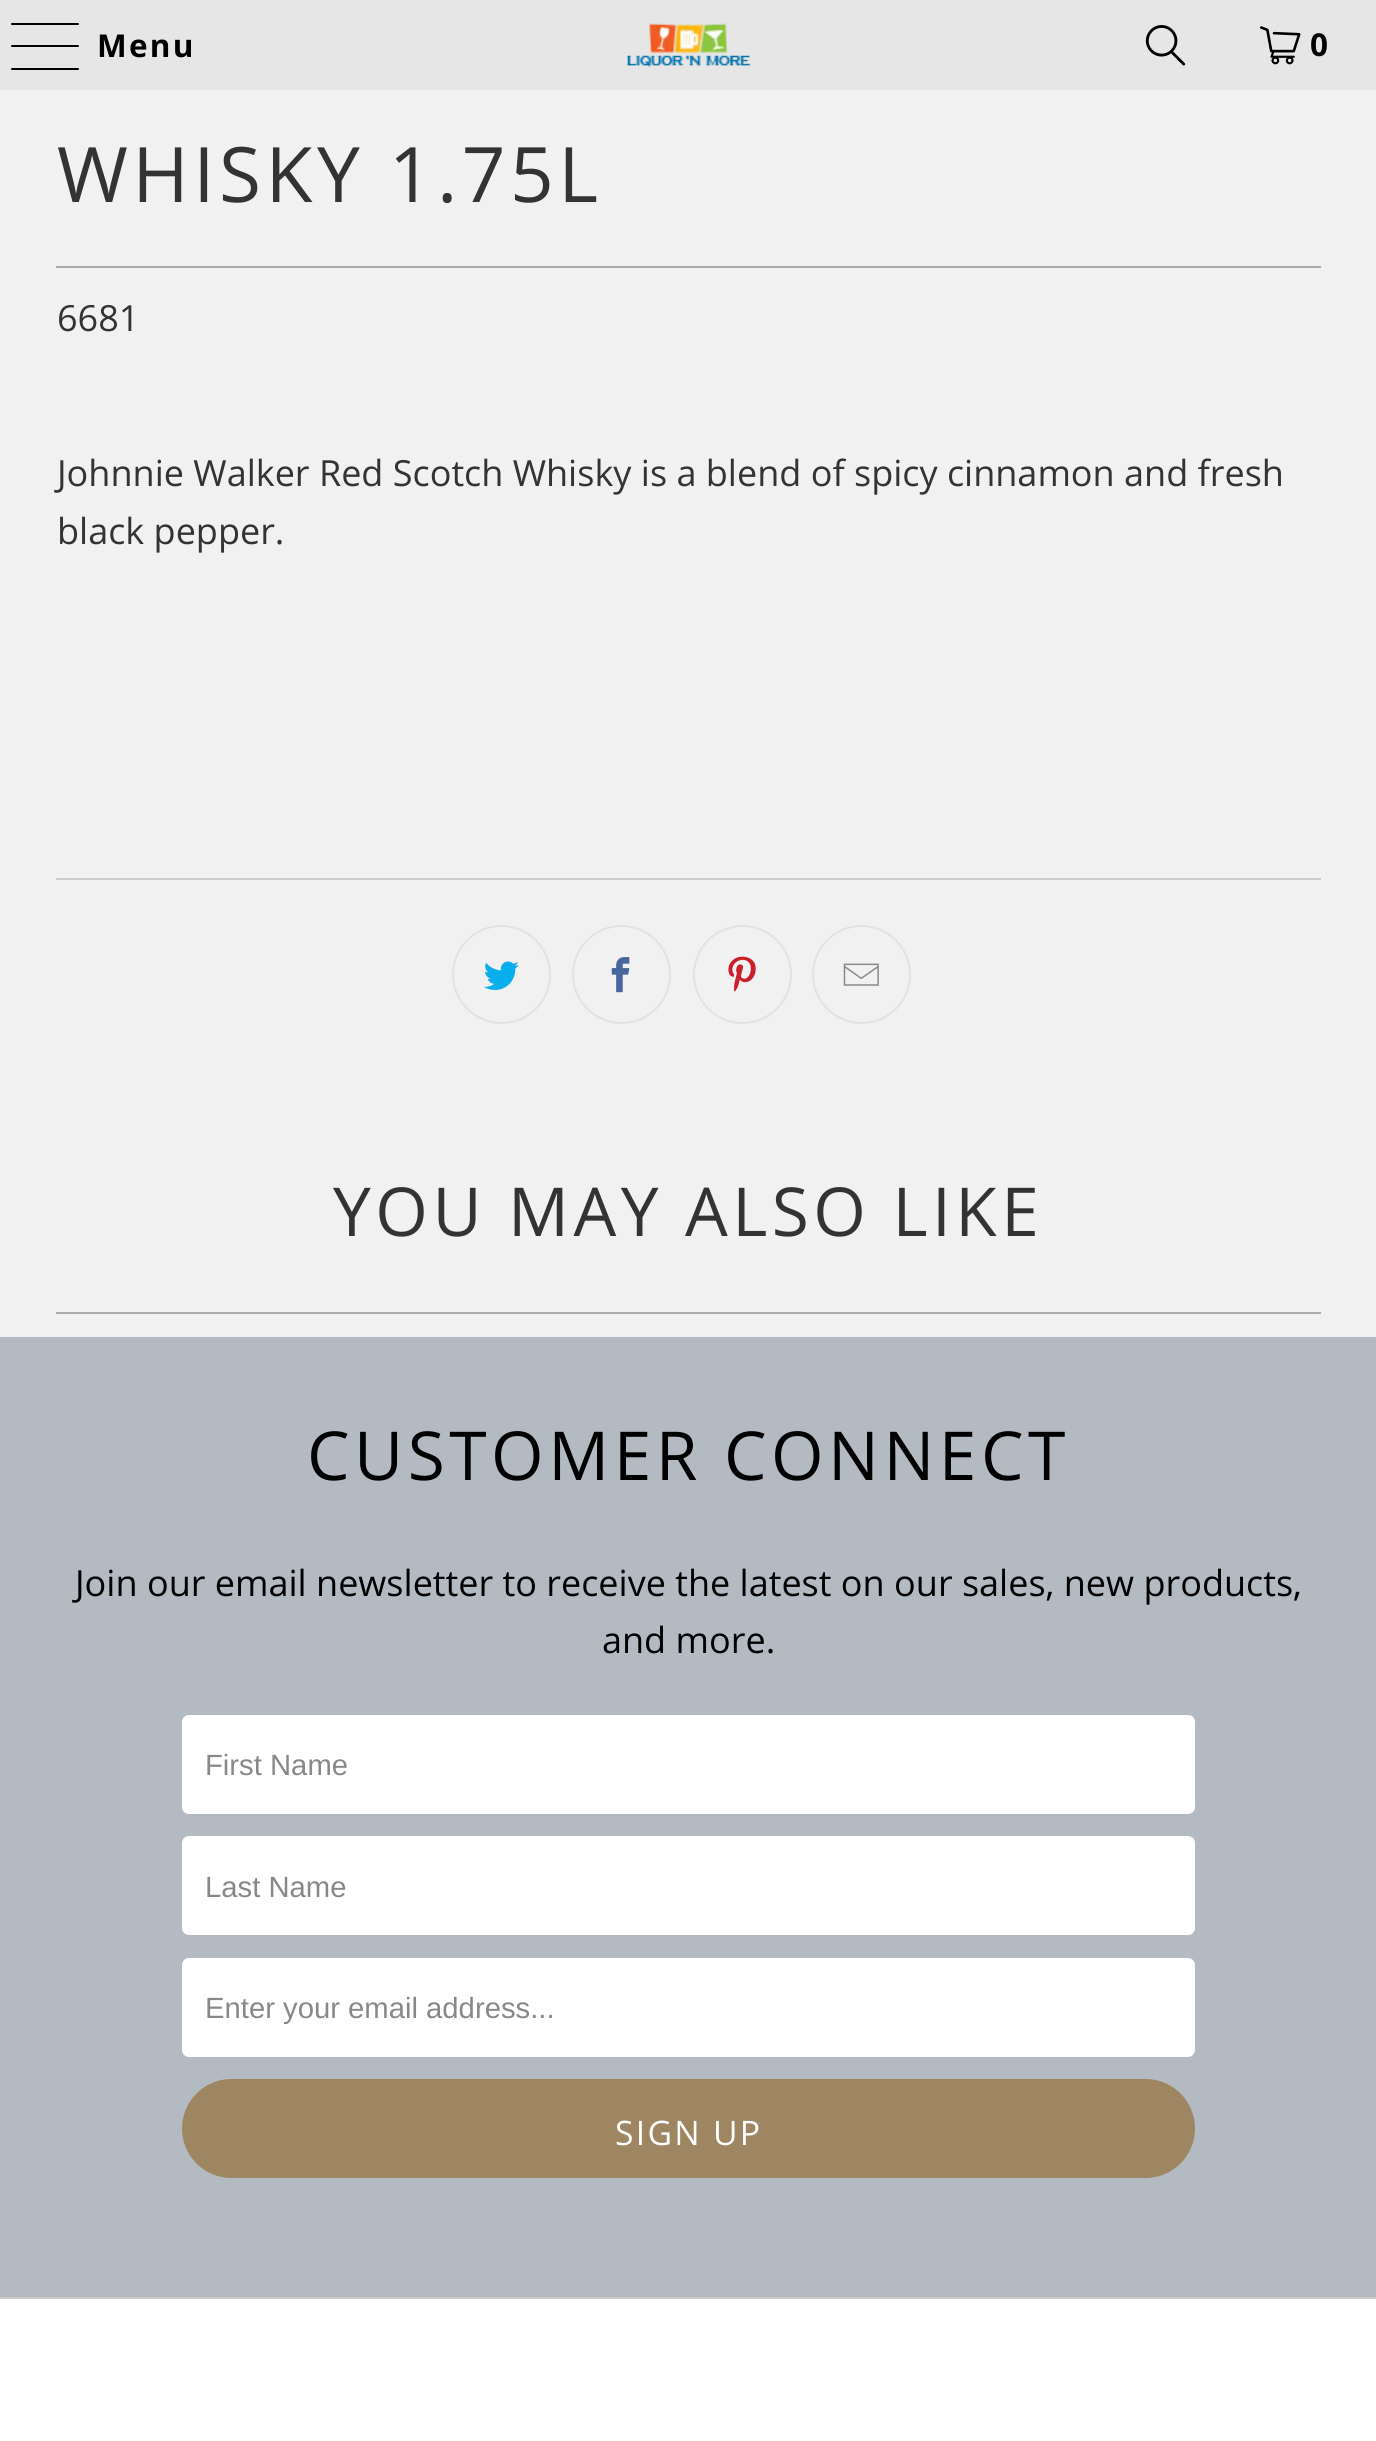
import math
import cairo

surface = cairo.ImageSurface(cairo.FORMAT_RGB24, 1376, 2441)
ctx = cairo.Context(surface)
options = cairo.FontOptions()
options.set_hint_metrics(cairo.HINT_METRICS_OFF)
options.set_hint_style(cairo.HINT_STYLE_NONE)
ctx.set_font_options(options)
ctx.set_miter_limit(4)


def spaced_text(x, y, s, letter, word):
    ctx.move_to(x, y)
    for ch in s:
        ctx.show_text(ch)
        ctx.rel_move_to(letter + word * (ch == ' '), 0)


def round_rect(x, y, w, h, r):
    ctx.new_sub_path()
    for i, (u, v) in enumerate([(x + w - r, y + h - r), (x + r, y + h - r), (x + r, y + r), (x + w - r, y + r)]):
        ctx.arc(u, v, r, i * math.pi / 2, (i + 1) * math.pi / 2)
    ctx.close_path()


def picture(path, x, y, w, h):
    ctx.save()
    ctx.set_source_surface(cairo.ImageSurface.create_from_png(path), x, y)
    ctx.rectangle(x, y, w, h)
    ctx.fill()
    ctx.restore()


ctx.set_source_rgb(0.945, 0.945, 0.945)
ctx.paint()
ctx.set_source_rgb(0.902, 0.902, 0.902)
ctx.rectangle(0, 0, 1376, 90)
ctx.fill()
ctx.set_source_rgb(0, 0, 0)
round_rect(11, 23, 68, 2, 1)
ctx.fill()
round_rect(11, 45, 68, 2, 1)
ctx.fill()
round_rect(11, 68, 68, 2, 1)
ctx.fill()
ctx.select_font_face("Open Sans", cairo.FONT_SLANT_NORMAL, cairo.FONT_WEIGHT_BOLD)
ctx.set_font_size(31.5)
spaced_text(97, 57, "Menu", 2.25, 0)
picture("img1.png", 626, 23, 125, 44)
picture("img2.png", 1145, 25, 41, 41)
picture("img3.png", 1260, 26, 41, 39)
spaced_text(1310, 56, "0", 2.25, 0)
ctx.select_font_face("Open Sans")
ctx.set_font_size(76.5)
ctx.set_source_rgb(0.2, 0.2, 0.2)
spaced_text(57, 202, "WHISKY 1.75L", 4.5, 0)
ctx.set_source_rgb(0.667, 0.667, 0.667)
ctx.rectangle(56, 266, 1265, 2)
ctx.fill()
ctx.set_font_size(36)
ctx.set_source_rgb(0.2, 0.2, 0.2)
ctx.move_to(57, 331)
ctx.show_text("6681")
ctx.move_to(57, 486)
ctx.show_text("Johnnie Walker Red Scotch Whisky is a blend of spicy cinnamon and fresh")
ctx.move_to(57, 544)
ctx.show_text("black pepper.")
ctx.set_source_rgb(0.8, 0.8, 0.8)
ctx.rectangle(56, 878, 1265, 2)
ctx.fill()
ctx.arc(501.5, 974.5, 48.5, 0, 2 * math.pi)
ctx.set_source_rgb(0.886, 0.886, 0.886)
ctx.stroke()
picture("img4.png", 484, 961, 35, 29)
ctx.arc(621.5, 974.5, 48.5, 0, 2 * math.pi)
ctx.stroke()
picture("img5.png", 611, 957, 19, 36)
ctx.arc(742.5, 974.5, 48.5, 0, 2 * math.pi)
ctx.stroke()
picture("img6.png", 728, 956, 28, 36)
ctx.arc(861.5, 974.5, 48.5, 0, 2 * math.pi)
ctx.stroke()
picture("img7.png", 843, 963, 36, 23)
ctx.set_font_size(67.5)
ctx.set_source_rgb(0.2, 0.2, 0.2)
spaced_text(333, 1236, "YOU MAY ALSO LIKE", 4.5, 0)
ctx.set_source_rgb(0.667, 0.667, 0.667)
ctx.rectangle(56, 1312, 1265, 2)
ctx.fill()
ctx.set_source_rgb(0.706, 0.729, 0.757)
ctx.rectangle(0, 1337, 1376, 960)
ctx.fill()
ctx.set_source_rgb(0, 0, 0)
spaced_text(307, 1480, "CUSTOMER CONNECT", 4.5, 0)
ctx.set_font_size(36)
ctx.move_to(75, 1596)
ctx.show_text("Join our email newsletter to receive the latest on our sales, new products,")
ctx.move_to(602, 1653)
ctx.show_text("and more.")
ctx.set_source_rgb(1, 1, 1)
round_rect(182, 1715, 1013, 99, 7)
ctx.fill()
ctx.select_font_face("Liberation Sans")
ctx.set_font_size(29.25)
ctx.set_source_rgb(0.533, 0.533, 0.533)
ctx.move_to(205, 1775)
ctx.show_text("First Name")
ctx.set_source_rgb(1, 1, 1)
round_rect(182, 1836, 1013, 99, 7)
ctx.fill()
ctx.set_source_rgb(0.533, 0.533, 0.533)
ctx.move_to(205, 1897)
ctx.show_text("Last Name")
ctx.set_source_rgb(1, 1, 1)
round_rect(182, 1958, 1013, 99, 7)
ctx.fill()
ctx.set_source_rgb(0.533, 0.533, 0.533)
ctx.move_to(205, 2018)
ctx.show_text("Enter your email address...")
ctx.set_source_rgb(0.616, 0.525, 0.38)
round_rect(183, 2080, 1011, 97, 48.5)
ctx.fill_preserve()
ctx.stroke()
ctx.select_font_face("Open Sans")
ctx.set_font_size(33.75)
ctx.set_source_rgb(1, 1, 1)
spaced_text(615, 2145, "SIGN UP", 2.25, 0)
ctx.rectangle(0, 2299, 1376, 142)
ctx.fill()
ctx.set_source_rgb(0.8, 0.8, 0.8)
ctx.rectangle(0, 2297, 1376, 2)
ctx.fill()
surface.write_to_png("page.png")
